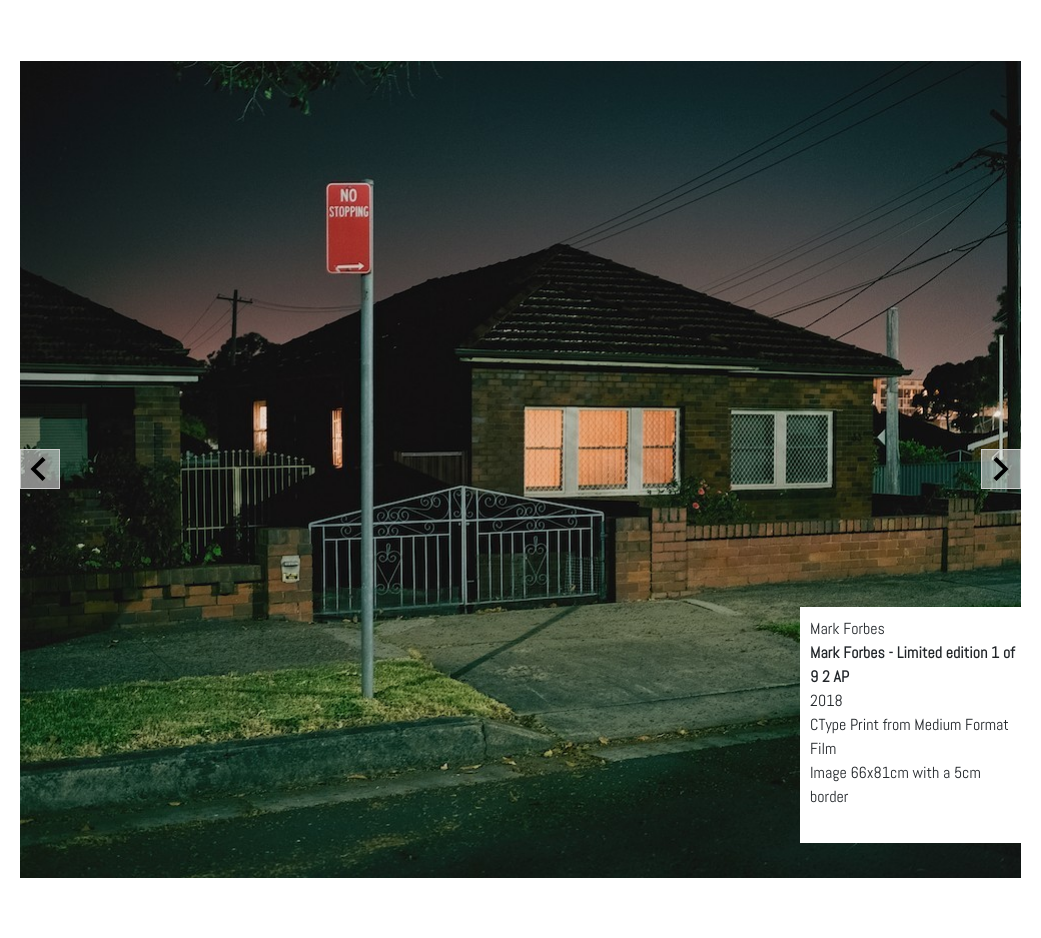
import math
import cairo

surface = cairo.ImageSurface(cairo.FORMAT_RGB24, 1041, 938)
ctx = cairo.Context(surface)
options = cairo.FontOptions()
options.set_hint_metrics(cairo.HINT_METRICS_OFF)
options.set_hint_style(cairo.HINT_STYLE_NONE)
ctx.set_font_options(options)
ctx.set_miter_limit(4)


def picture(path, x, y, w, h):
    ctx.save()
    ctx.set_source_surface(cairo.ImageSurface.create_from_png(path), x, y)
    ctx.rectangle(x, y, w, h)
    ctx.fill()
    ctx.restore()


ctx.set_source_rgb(1, 1, 1)
ctx.paint()
picture("img1.png", 20, 61, 1001, 817)
ctx.set_source_rgba(1, 1, 1, 0.5)
ctx.rectangle(20.5, 449.5, 39, 39)
ctx.fill_preserve()
ctx.set_source_rgb(0.8, 0.8, 0.8)
ctx.set_line_width(1)
ctx.stroke()
ctx.set_source_rgb(0, 0, 0)
ctx.new_path()
ctx.move_to(42.5, 457)
ctx.line_to(45.5, 460)
ctx.line_to(36, 469)
ctx.line_to(45.5, 478)
ctx.line_to(42.5, 481)
ctx.line_to(30.5, 469)
ctx.close_path()
ctx.fill()
ctx.set_source_rgba(1, 1, 1, 0.5)
ctx.rectangle(981.5, 449.5, 39, 39)
ctx.fill_preserve()
ctx.set_source_rgb(0.8, 0.8, 0.8)
ctx.stroke()
ctx.set_source_rgb(0, 0, 0)
ctx.new_path()
ctx.move_to(996.5, 481)
ctx.line_to(993.5, 478)
ctx.line_to(1003, 469)
ctx.line_to(993.5, 460)
ctx.line_to(996.5, 457)
ctx.line_to(1008.5, 469)
ctx.close_path()
ctx.fill()
ctx.set_source_rgb(1, 1, 1)
ctx.rectangle(800, 607, 221, 236)
ctx.fill()
ctx.select_font_face("Abel")
ctx.set_font_size(16)
ctx.set_source_rgb(0.129, 0.145, 0.161)
ctx.move_to(810, 634)
ctx.show_text("Mark Forbes")
ctx.select_font_face("Abel", cairo.FONT_SLANT_NORMAL, cairo.FONT_WEIGHT_BOLD)
ctx.move_to(810, 658)
ctx.show_text("Mark Forbes - Limited edition 1 of")
ctx.move_to(810, 682)
ctx.show_text("9 2 AP")
ctx.select_font_face("Abel")
ctx.move_to(810, 706)
ctx.show_text("2018")
ctx.move_to(810, 730)
ctx.show_text("CType Print from Medium Format")
ctx.move_to(810, 754)
ctx.show_text("Film")
ctx.move_to(810, 778)
ctx.show_text("Image 66x81cm with a 5cm")
ctx.move_to(810, 802)
ctx.show_text("border")
surface.write_to_png("page.png")
